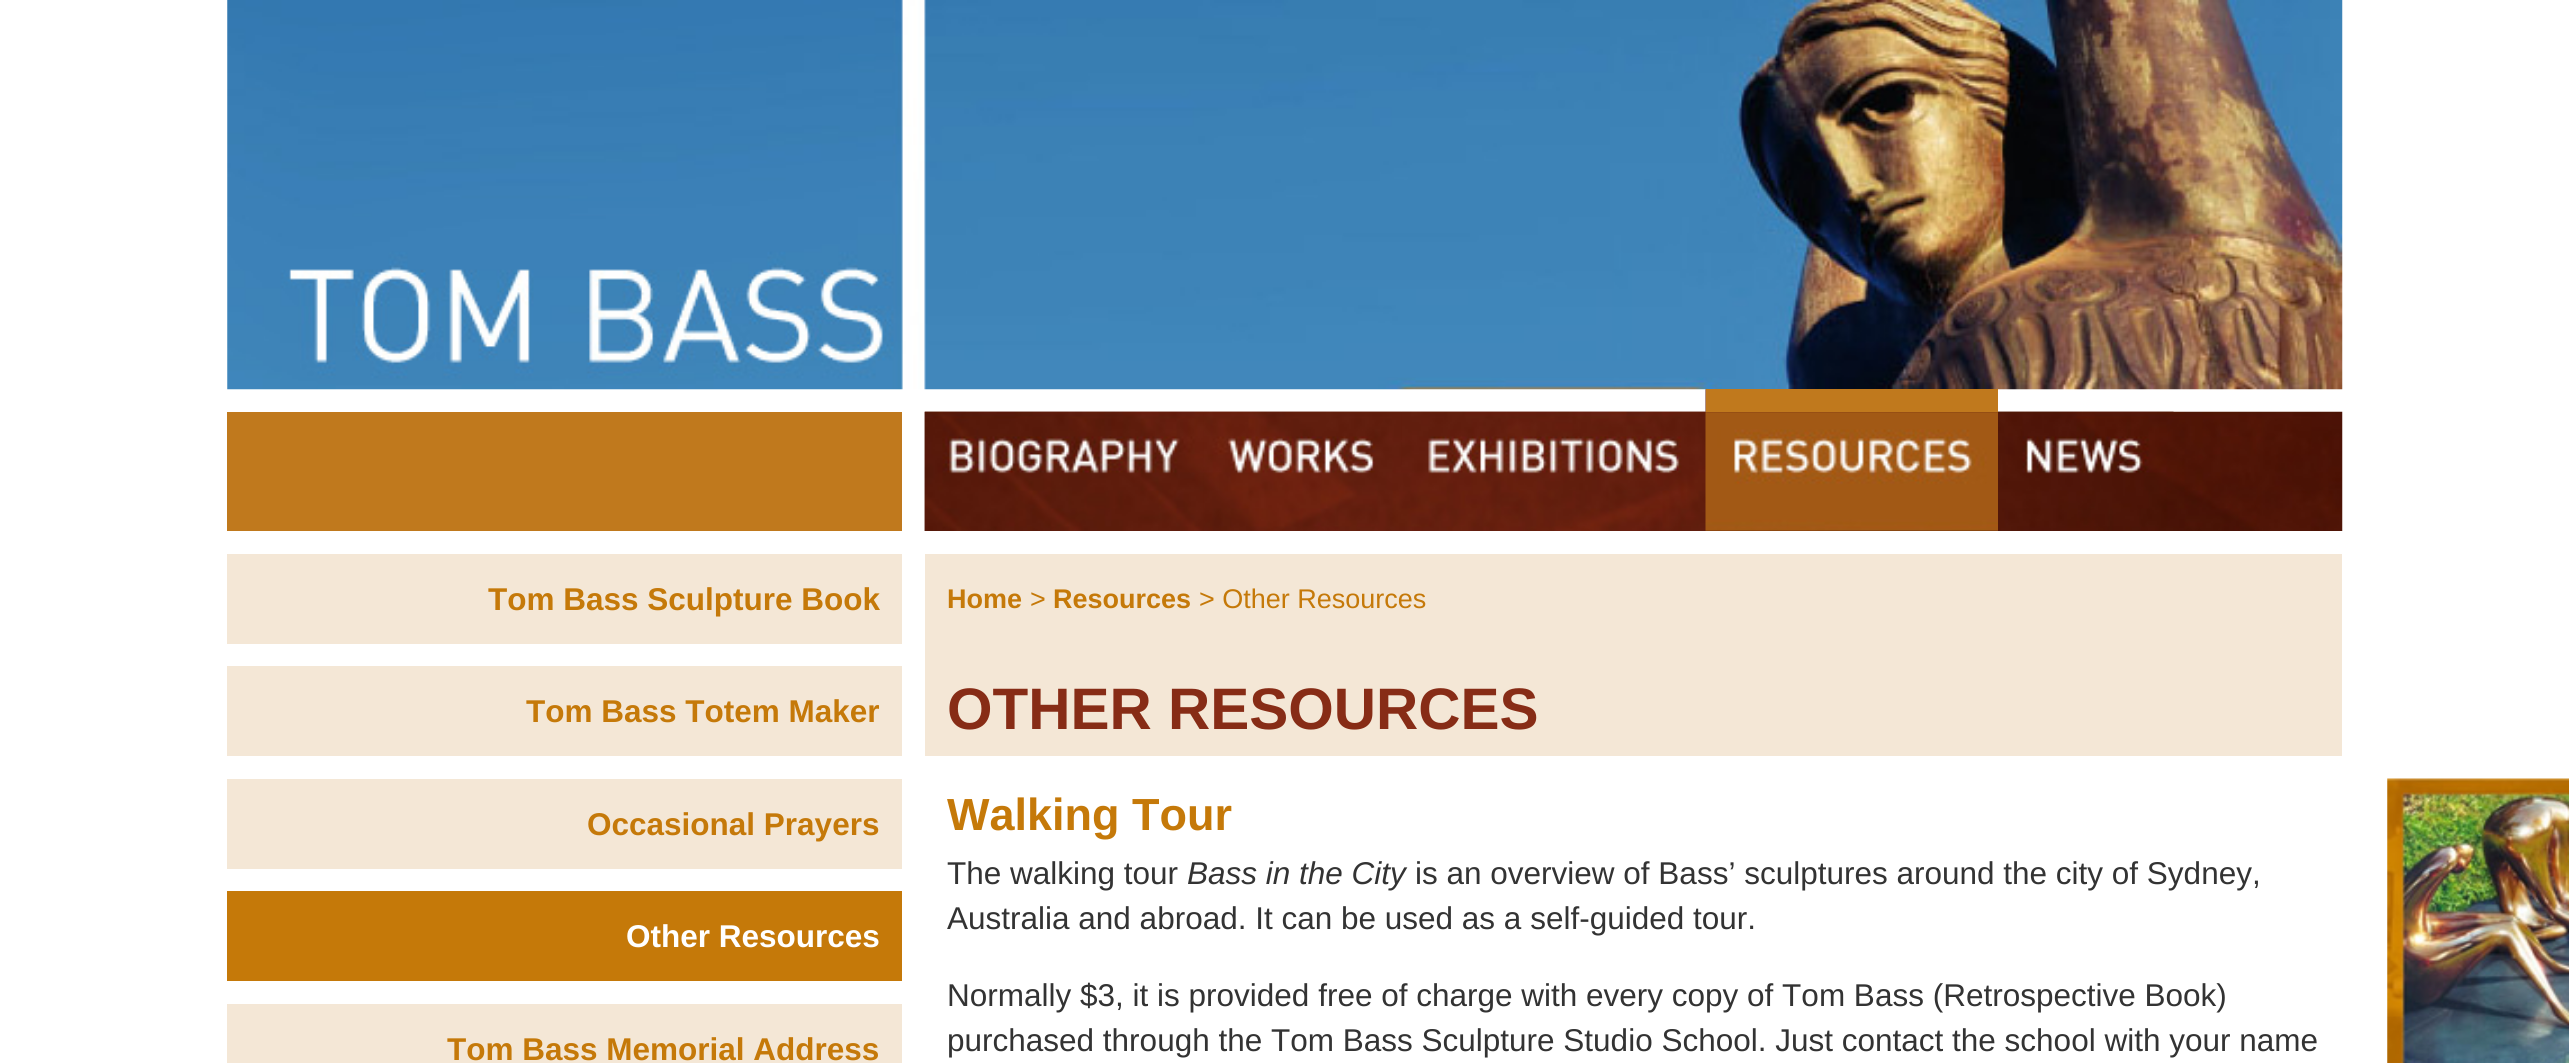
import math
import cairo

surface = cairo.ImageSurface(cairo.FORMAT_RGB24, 2569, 1063)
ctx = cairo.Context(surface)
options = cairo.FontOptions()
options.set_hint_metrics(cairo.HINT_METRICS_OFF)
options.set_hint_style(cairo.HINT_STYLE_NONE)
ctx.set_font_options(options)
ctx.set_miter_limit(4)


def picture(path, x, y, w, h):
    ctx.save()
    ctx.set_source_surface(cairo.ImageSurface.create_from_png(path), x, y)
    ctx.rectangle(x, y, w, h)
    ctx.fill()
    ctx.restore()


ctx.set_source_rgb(1, 1, 1)
ctx.paint()
picture("img1.png", 227, 0, 2116, 390)
ctx.set_source_rgb(0.753, 0.475, 0.114)
ctx.rectangle(227, 412, 675, 119)
ctx.fill()
picture("img2.png", 924, 411, 1419, 120)
picture("img3.png", 924, 411, 280, 120)
picture("img4.png", 1203, 411, 199, 60)
picture("img5.png", 1401, 411, 305, 61)
picture("img6.png", 1705, 389, 293, 142)
ctx.rectangle(1706, 389, 292, 23)
ctx.fill()
picture("img7.png", 1998, 411, 176, 1)
ctx.set_source_rgb(0.957, 0.906, 0.839)
ctx.rectangle(227, 554, 675, 509)
ctx.fill()
ctx.set_source_rgb(1, 1, 1)
ctx.rectangle(227, 644, 675, 22)
ctx.fill()
ctx.select_font_face("Liberation Sans", cairo.FONT_SLANT_NORMAL, cairo.FONT_WEIGHT_BOLD)
ctx.set_font_size(31.5)
ctx.set_source_rgb(0.773, 0.475, 0.039)
ctx.move_to(488, 610)
ctx.show_text("Tom Bass Sculpture Book")
ctx.set_source_rgb(1, 1, 1)
ctx.rectangle(227, 756, 675, 23)
ctx.fill()
ctx.set_source_rgb(0.773, 0.475, 0.039)
ctx.move_to(526, 722)
ctx.show_text("Tom Bass Totem Maker")
ctx.set_source_rgb(1, 1, 1)
ctx.rectangle(227, 869, 675, 22)
ctx.fill()
ctx.set_source_rgb(0.773, 0.475, 0.039)
ctx.move_to(587, 835)
ctx.show_text("Occasional Prayers")
ctx.rectangle(227, 891, 675, 90)
ctx.fill()
ctx.set_source_rgb(1, 1, 1)
ctx.rectangle(227, 981, 675, 23)
ctx.fill()
ctx.move_to(626, 947)
ctx.show_text("Other Resources")
ctx.set_source_rgb(0.773, 0.475, 0.039)
ctx.move_to(447, 1060)
ctx.show_text("Tom Bass Memorial Address")
ctx.set_source_rgb(0.957, 0.906, 0.839)
ctx.rectangle(925, 554, 1417, 202)
ctx.fill()
ctx.set_font_size(27)
ctx.set_source_rgb(0.773, 0.475, 0.039)
ctx.move_to(947, 608)
ctx.show_text("Home")
ctx.select_font_face("Liberation Sans")
ctx.move_to(1030, 608)
ctx.show_text(">")
ctx.select_font_face("Liberation Sans", cairo.FONT_SLANT_NORMAL, cairo.FONT_WEIGHT_BOLD)
ctx.move_to(1053, 608)
ctx.show_text("Resources")
ctx.select_font_face("Liberation Sans")
ctx.move_to(1199, 608)
ctx.show_text("> Other Resources")
ctx.select_font_face("Liberation Sans", cairo.FONT_SLANT_NORMAL, cairo.FONT_WEIGHT_BOLD)
ctx.set_font_size(58.5)
ctx.set_source_rgb(0.529, 0.173, 0.086)
ctx.move_to(947, 729)
ctx.show_text("OTHER RESOURCES")
ctx.set_font_size(45)
ctx.set_source_rgb(0.773, 0.475, 0.039)
ctx.move_to(947, 830)
ctx.show_text("Walking Tour")
picture("img8.png", 2387, 778, 182, 285)
ctx.select_font_face("Liberation Sans")
ctx.set_font_size(31.5)
ctx.set_source_rgb(0.2, 0.2, 0.2)
ctx.move_to(947, 884)
ctx.show_text("The walking tour")
ctx.select_font_face("Liberation Sans", cairo.FONT_SLANT_ITALIC)
ctx.move_to(1187, 884)
ctx.show_text("Bass in the City")
ctx.select_font_face("Liberation Sans")
ctx.move_to(1415, 884)
ctx.show_text("is an overview of Bass’ sculptures around the city of Sydney,")
ctx.move_to(947, 929)
ctx.show_text("Australia and abroad. It can be used as a self-guided tour.")
ctx.move_to(947, 1006)
ctx.show_text("Normally $3, it is provided free of charge with every copy of Tom Bass (Retrospective Book)")
ctx.move_to(947, 1051)
ctx.show_text("purchased through the Tom Bass Sculpture Studio School. Just contact the school with your name")
surface.write_to_png("page.png")
